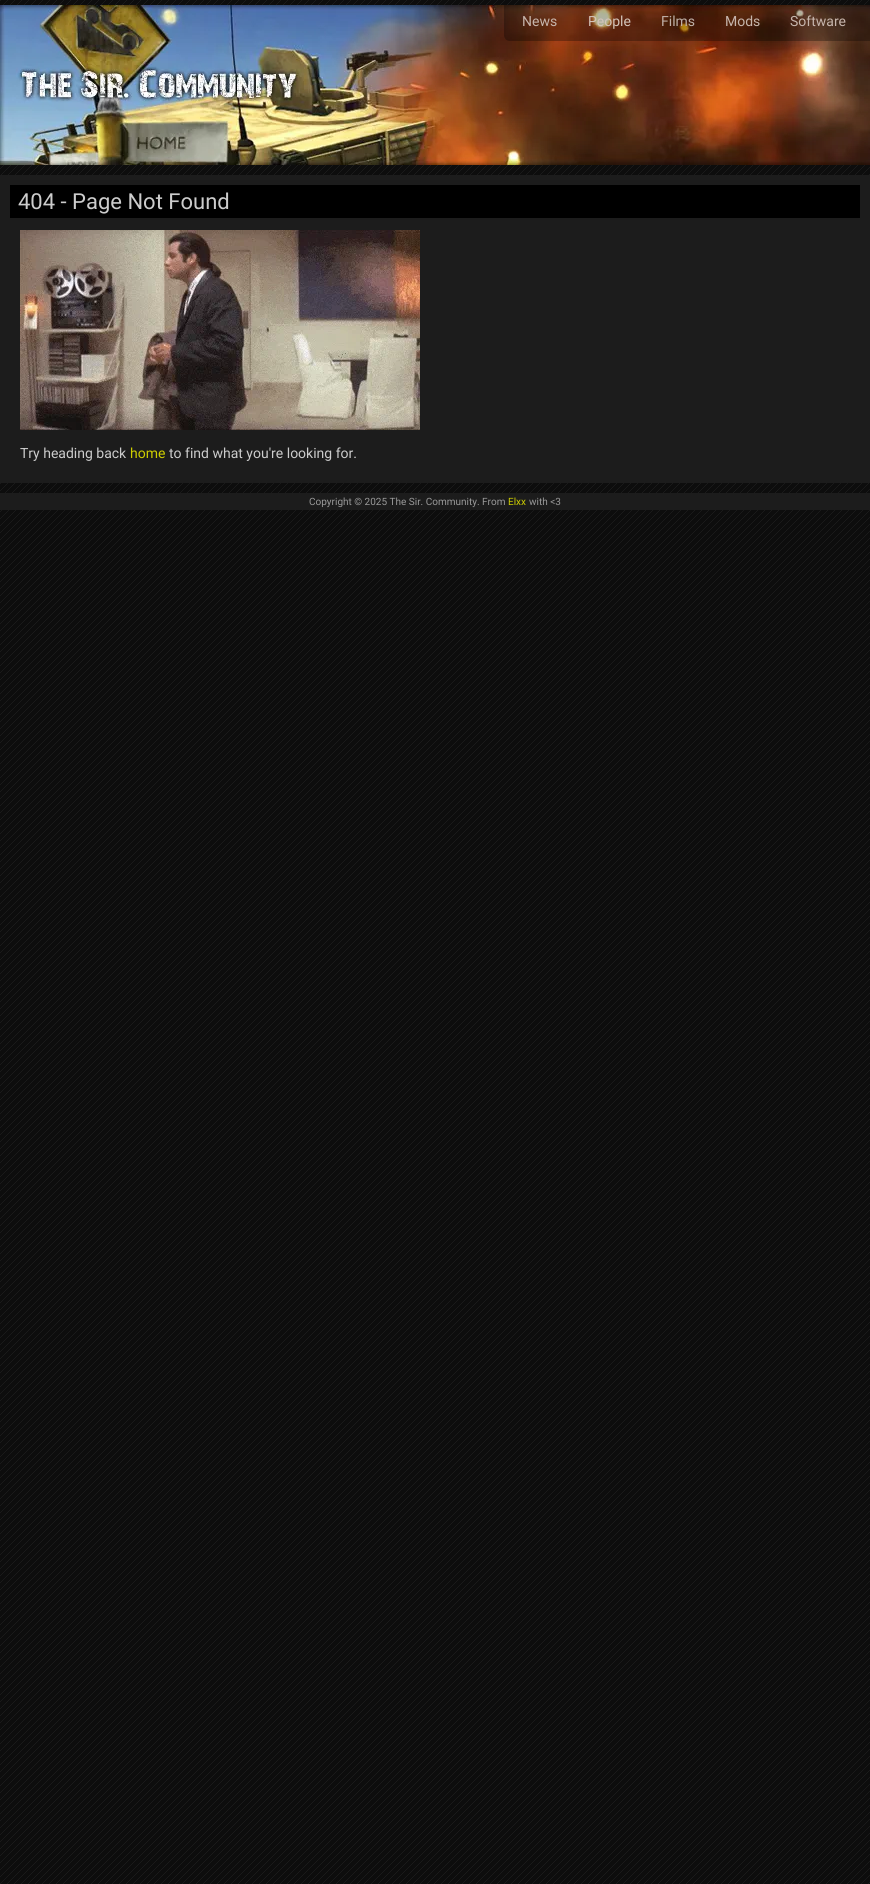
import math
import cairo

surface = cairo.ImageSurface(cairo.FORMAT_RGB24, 870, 1884)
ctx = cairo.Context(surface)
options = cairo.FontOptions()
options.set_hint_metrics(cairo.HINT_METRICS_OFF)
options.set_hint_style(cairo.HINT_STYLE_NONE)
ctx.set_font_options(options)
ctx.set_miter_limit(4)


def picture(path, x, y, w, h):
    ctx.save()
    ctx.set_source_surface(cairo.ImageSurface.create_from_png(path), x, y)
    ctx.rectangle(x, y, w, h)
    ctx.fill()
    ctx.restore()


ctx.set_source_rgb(1, 1, 1)
ctx.paint()
picture("img1.png", 0, 0, 870, 1884)
picture("img2.png", 0, 5, 870, 160)
ctx.set_source_rgba(0, 0, 0, 0.3)
ctx.new_path()
ctx.move_to(504, 5)
ctx.line_to(870, 5)
ctx.line_to(870, 41)
ctx.line_to(510, 41)
ctx.curve_to(506.5, 41, 504, 38.5, 504, 35)
ctx.close_path()
ctx.fill()
ctx.select_font_face("Roboto")
ctx.set_font_size(14)
ctx.set_source_rgb(0.776, 0.71, 0.675)
ctx.move_to(522, 26)
ctx.show_text("News")
ctx.set_source_rgb(0.827, 0.769, 0.725)
ctx.move_to(588, 26)
ctx.show_text("People")
ctx.set_source_rgb(0.749, 0.69, 0.659)
ctx.move_to(661, 26)
ctx.show_text("Films")
ctx.set_source_rgb(0.776, 0.71, 0.675)
ctx.move_to(725, 26)
ctx.show_text("Mods")
ctx.move_to(790, 26)
ctx.show_text("Software")
ctx.set_source_rgb(0.11, 0.11, 0.11)
ctx.rectangle(0, 175, 870, 308)
ctx.fill()
ctx.set_source_rgb(0, 0, 0)
ctx.rectangle(10, 185, 850, 33)
ctx.fill()
ctx.set_font_size(22)
ctx.set_source_rgb(0.8, 0.8, 0.8)
ctx.move_to(18, 209)
ctx.show_text("404 - Page Not Found")
picture("img3.png", 20, 230, 400, 200)
ctx.set_font_size(14)
ctx.move_to(20, 458)
ctx.show_text("Try heading back")
ctx.set_source_rgb(0.804, 0.804, 0)
ctx.move_to(130, 458)
ctx.show_text("home")
ctx.set_source_rgb(0.8, 0.8, 0.8)
ctx.move_to(169, 458)
ctx.show_text("to find what you're looking for.")
ctx.set_source_rgb(0.11, 0.11, 0.11)
ctx.rectangle(0, 493, 870, 17)
ctx.fill()
ctx.set_font_size(10)
ctx.set_source_rgb(0.6, 0.6, 0.6)
ctx.move_to(309, 505)
ctx.show_text("Copyright © 2025 The Sir. Community. From")
ctx.set_source_rgb(0.804, 0.804, 0)
ctx.move_to(508, 505)
ctx.show_text("Elxx")
ctx.set_source_rgb(0.6, 0.6, 0.6)
ctx.move_to(529, 505)
ctx.show_text("with <3")
surface.write_to_png("page.png")
